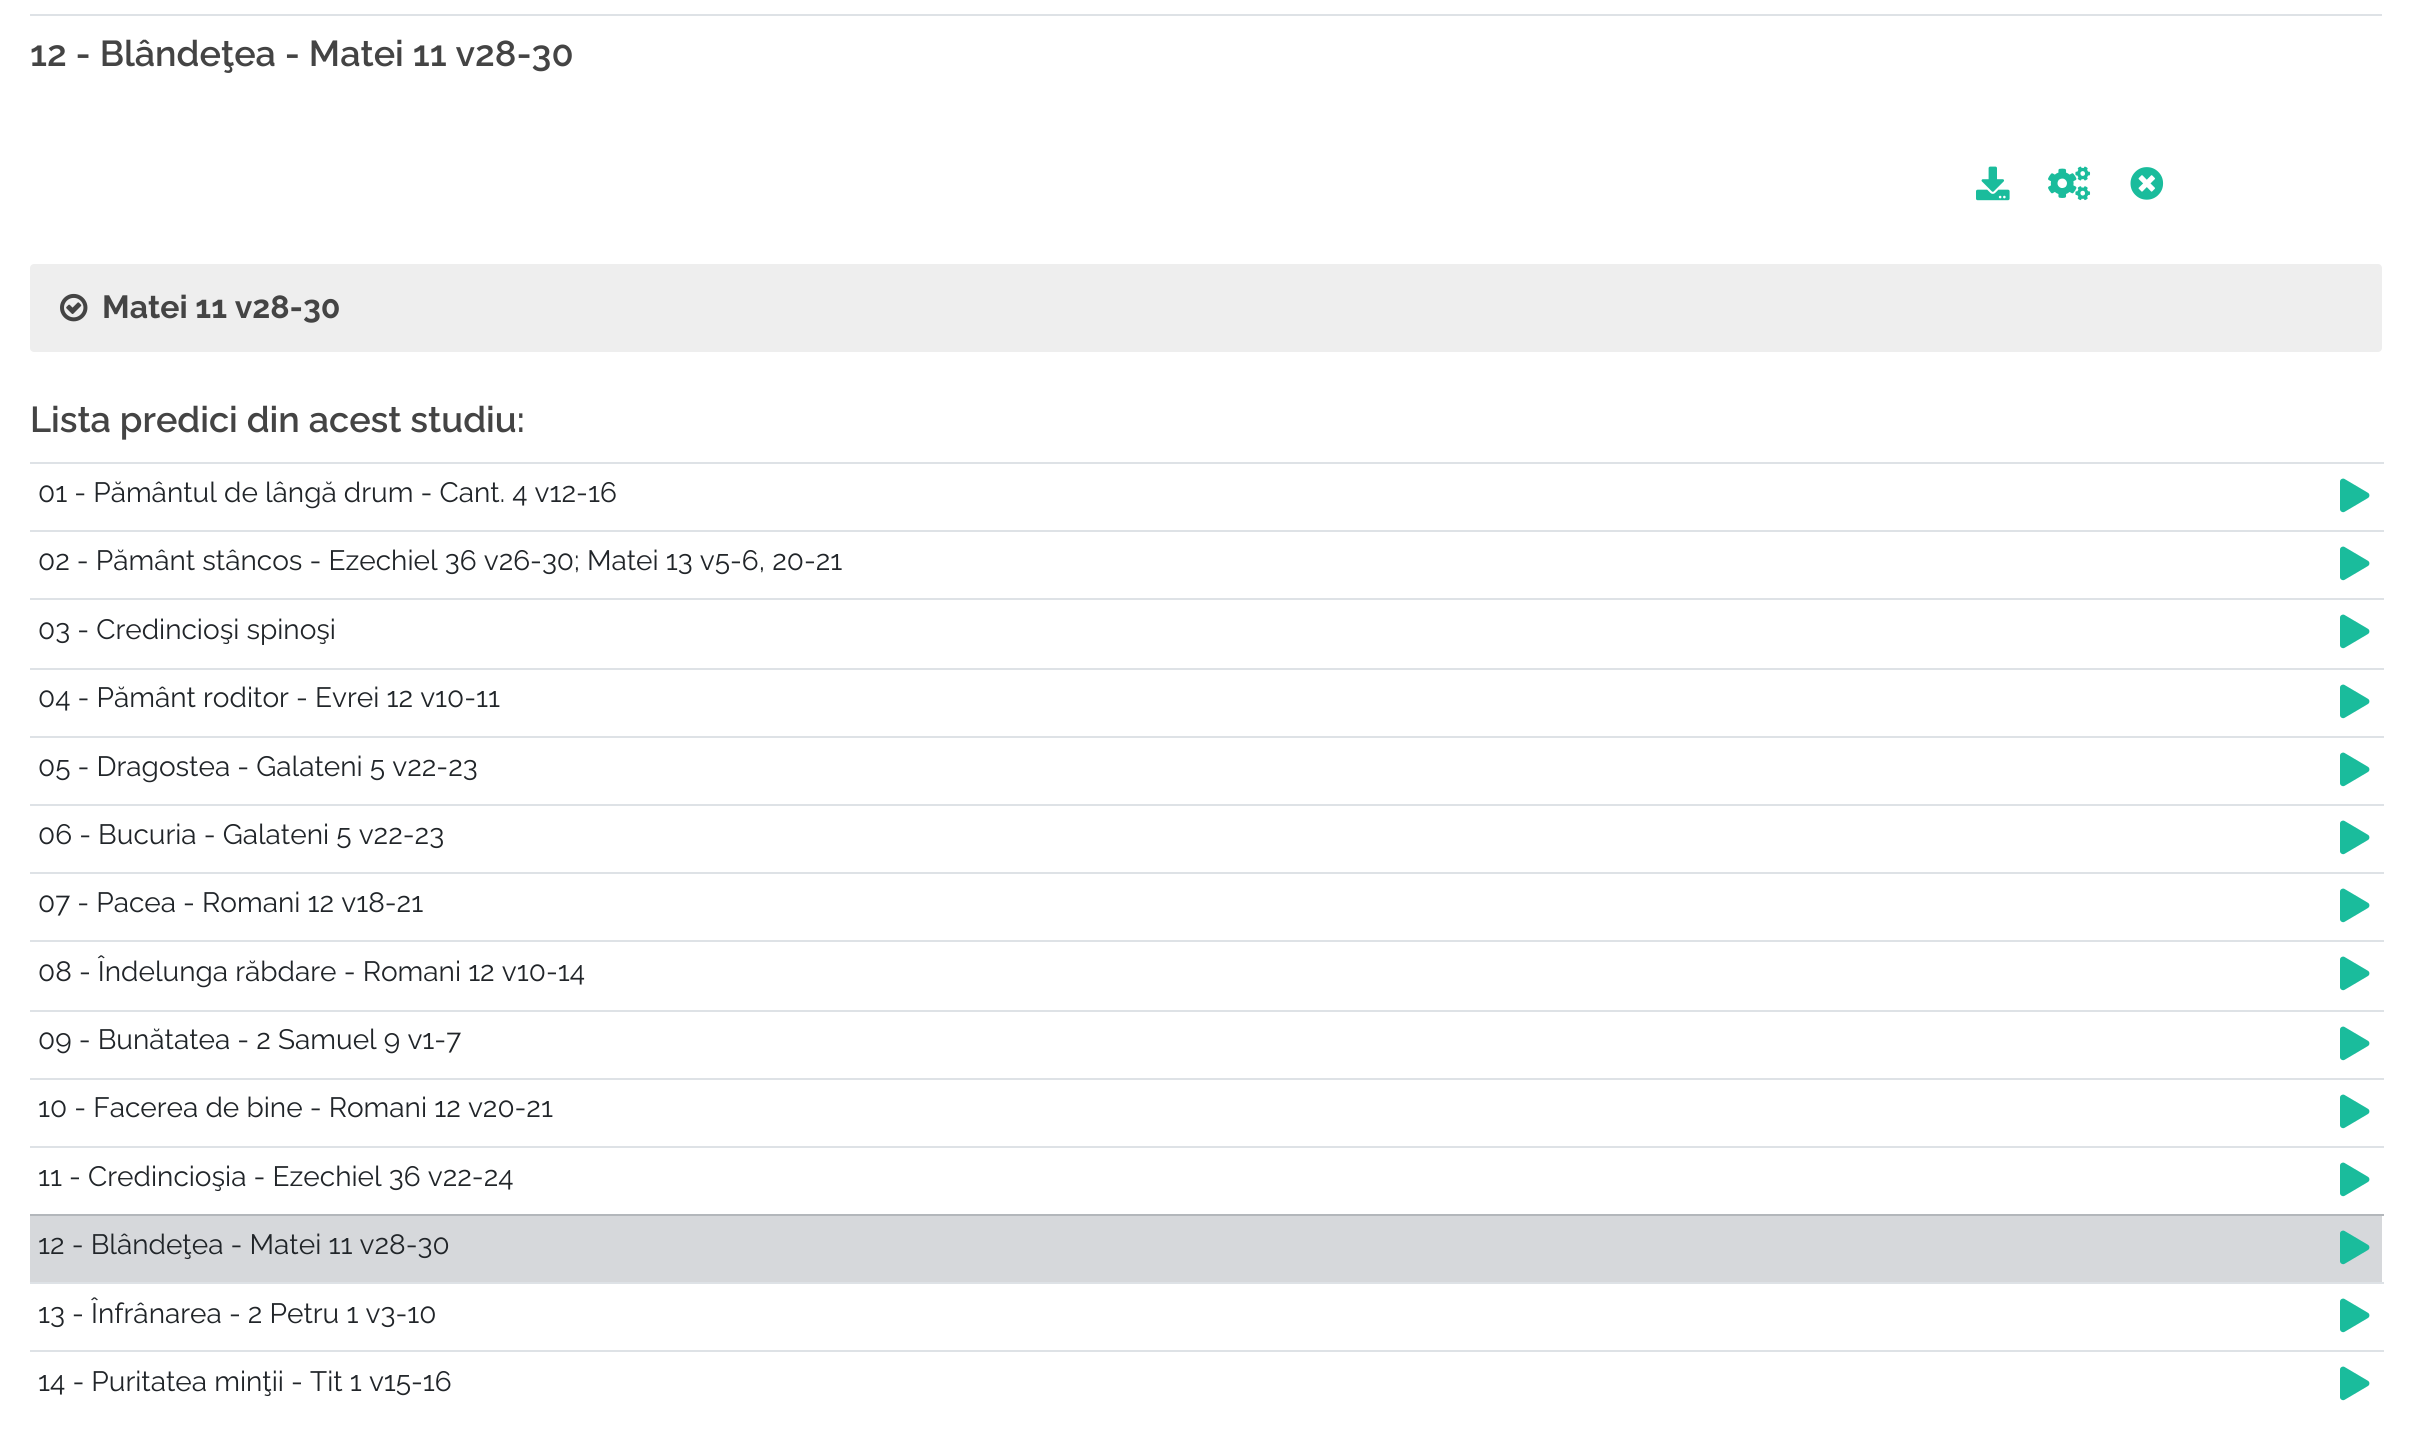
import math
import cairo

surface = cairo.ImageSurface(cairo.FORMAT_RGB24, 2412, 1452)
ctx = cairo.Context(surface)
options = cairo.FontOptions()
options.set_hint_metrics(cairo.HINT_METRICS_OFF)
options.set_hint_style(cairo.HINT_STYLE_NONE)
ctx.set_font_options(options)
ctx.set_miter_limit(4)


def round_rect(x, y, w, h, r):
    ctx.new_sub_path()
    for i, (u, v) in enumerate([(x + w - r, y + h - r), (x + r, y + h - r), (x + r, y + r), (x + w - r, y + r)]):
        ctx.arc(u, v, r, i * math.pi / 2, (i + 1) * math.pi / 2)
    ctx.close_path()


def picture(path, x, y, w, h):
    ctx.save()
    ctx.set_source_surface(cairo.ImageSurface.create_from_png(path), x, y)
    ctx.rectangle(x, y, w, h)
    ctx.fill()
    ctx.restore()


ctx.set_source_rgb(1, 1, 1)
ctx.paint()
ctx.set_source_rgb(0.871, 0.886, 0.902)
ctx.rectangle(30, 14, 2352, 2)
ctx.fill()
ctx.select_font_face("Raleway SemiBold")
ctx.set_font_size(36)
ctx.set_source_rgb(0.267, 0.267, 0.267)
ctx.move_to(30, 66)
ctx.show_text("12 - Blândeţea - Matei 11 v28-30")
picture("img1.png", 1976, 166, 34, 35)
picture("img2.png", 2048, 166, 43, 35)
picture("img3.png", 2130, 167, 34, 33)
ctx.set_source_rgb(0.933, 0.933, 0.933)
round_rect(30, 264, 2352, 88, 4)
ctx.fill()
picture("img4.png", 60, 293, 28, 29)
ctx.select_font_face("Raleway", cairo.FONT_SLANT_NORMAL, cairo.FONT_WEIGHT_BOLD)
ctx.set_font_size(32)
ctx.set_source_rgb(0.267, 0.267, 0.267)
ctx.move_to(102, 318)
ctx.show_text("Matei 11 v28-30")
ctx.select_font_face("Raleway SemiBold")
ctx.set_font_size(36)
ctx.move_to(30, 432)
ctx.show_text("Lista predici din acest studiu:")
ctx.set_source_rgb(0.871, 0.886, 0.902)
ctx.rectangle(30, 462, 2354, 2)
ctx.fill()
picture("img5.png", 2340, 478, 30, 35)
ctx.select_font_face("Raleway")
ctx.set_font_size(28)
ctx.set_source_rgb(0.129, 0.145, 0.161)
ctx.move_to(38, 502)
ctx.show_text("01 - Pământul de lângă drum - Cant. 4 v12-16")
ctx.set_source_rgb(0.871, 0.886, 0.902)
ctx.rectangle(30, 530, 2354, 2)
ctx.fill()
picture("img5.png", 2340, 546, 30, 35)
ctx.set_source_rgb(0.129, 0.145, 0.161)
ctx.move_to(38, 570)
ctx.show_text("02 - Pământ stâncos - Ezechiel 36 v26-30; Matei 13 v5-6, 20-21")
ctx.set_source_rgb(0.871, 0.886, 0.902)
ctx.rectangle(30, 598, 2354, 2)
ctx.fill()
picture("img5.png", 2340, 614, 30, 35)
ctx.set_source_rgb(0.129, 0.145, 0.161)
ctx.move_to(38, 639)
ctx.show_text("03 - Credincioşi spinoşi")
ctx.set_source_rgb(0.871, 0.886, 0.902)
ctx.rectangle(30, 668, 2354, 2)
ctx.fill()
picture("img5.png", 2340, 684, 30, 35)
ctx.set_source_rgb(0.129, 0.145, 0.161)
ctx.move_to(38, 707)
ctx.show_text("04 - Pământ roditor - Evrei 12 v10-11")
ctx.set_source_rgb(0.871, 0.886, 0.902)
ctx.rectangle(30, 736, 2354, 2)
ctx.fill()
picture("img5.png", 2340, 752, 30, 35)
ctx.set_source_rgb(0.129, 0.145, 0.161)
ctx.move_to(38, 776)
ctx.show_text("05 - Dragostea - Galateni 5 v22-23")
ctx.set_source_rgb(0.871, 0.886, 0.902)
ctx.rectangle(30, 804, 2354, 2)
ctx.fill()
picture("img5.png", 2340, 820, 30, 35)
ctx.set_source_rgb(0.129, 0.145, 0.161)
ctx.move_to(38, 844)
ctx.show_text("06 - Bucuria - Galateni 5 v22-23")
ctx.set_source_rgb(0.871, 0.886, 0.902)
ctx.rectangle(30, 872, 2354, 2)
ctx.fill()
picture("img5.png", 2340, 888, 30, 35)
ctx.set_source_rgb(0.129, 0.145, 0.161)
ctx.move_to(38, 912)
ctx.show_text("07 - Pacea - Romani 12 v18-21")
ctx.set_source_rgb(0.871, 0.886, 0.902)
ctx.rectangle(30, 940, 2354, 2)
ctx.fill()
picture("img5.png", 2340, 956, 30, 35)
ctx.set_source_rgb(0.129, 0.145, 0.161)
ctx.move_to(38, 981)
ctx.show_text("08 - Îndelunga răbdare - Romani 12 v10-14")
ctx.set_source_rgb(0.871, 0.886, 0.902)
ctx.rectangle(30, 1010, 2354, 2)
ctx.fill()
picture("img5.png", 2340, 1026, 30, 35)
ctx.set_source_rgb(0.129, 0.145, 0.161)
ctx.move_to(38, 1049)
ctx.show_text("09 - Bunătatea - 2 Samuel 9 v1-7")
ctx.set_source_rgb(0.871, 0.886, 0.902)
ctx.rectangle(30, 1078, 2354, 2)
ctx.fill()
picture("img5.png", 2340, 1094, 30, 35)
ctx.set_source_rgb(0.129, 0.145, 0.161)
ctx.move_to(38, 1117)
ctx.show_text("10 - Facerea de bine - Romani 12 v20-21")
ctx.set_source_rgb(0.871, 0.886, 0.902)
ctx.rectangle(30, 1146, 2354, 2)
ctx.fill()
picture("img5.png", 2340, 1162, 30, 35)
ctx.set_source_rgb(0.129, 0.145, 0.161)
ctx.move_to(38, 1186)
ctx.show_text("11 - Credincioşia - Ezechiel 36 v22-24")
ctx.set_source_rgb(0.839, 0.847, 0.859)
ctx.rectangle(30, 1216, 2352, 66)
ctx.fill()
ctx.set_source_rgb(0.702, 0.718, 0.733)
ctx.rectangle(30, 1214, 2354, 2)
ctx.fill()
picture("img6.png", 2340, 1230, 30, 35)
ctx.set_source_rgb(0.129, 0.145, 0.161)
ctx.move_to(38, 1254)
ctx.show_text("12 - Blândeţea - Matei 11 v28-30")
ctx.set_source_rgb(0.871, 0.886, 0.902)
ctx.rectangle(30, 1282, 2354, 2)
ctx.fill()
picture("img5.png", 2340, 1298, 30, 35)
ctx.set_source_rgb(0.129, 0.145, 0.161)
ctx.move_to(38, 1323)
ctx.show_text("13 - Înfrânarea - 2 Petru 1 v3-10")
ctx.set_source_rgb(0.871, 0.886, 0.902)
ctx.rectangle(30, 1350, 2354, 2)
ctx.fill()
picture("img5.png", 2340, 1366, 30, 35)
ctx.set_source_rgb(0.129, 0.145, 0.161)
ctx.move_to(38, 1391)
ctx.show_text("14 - Puritatea minţii - Tit 1 v15-16")
surface.write_to_png("page.png")
